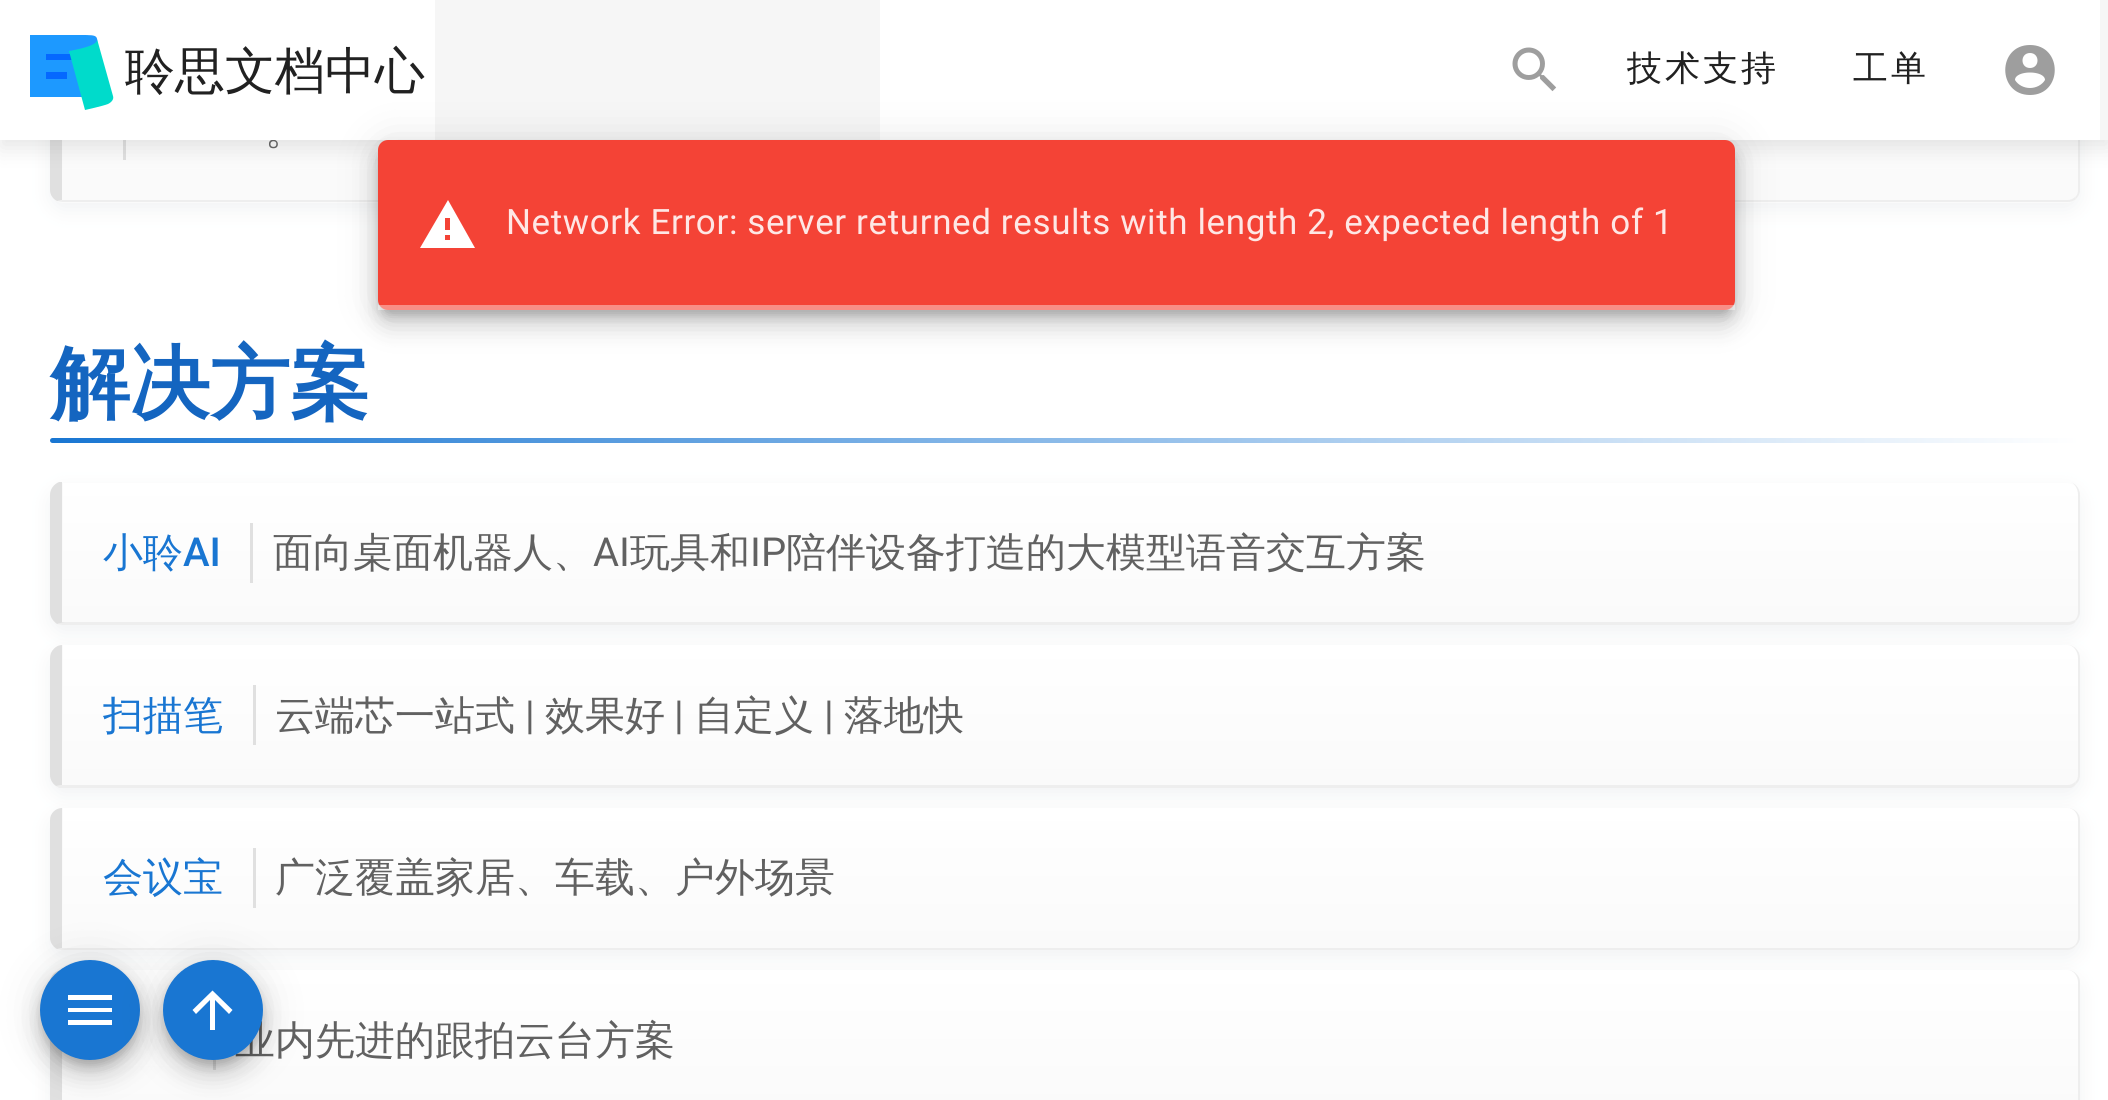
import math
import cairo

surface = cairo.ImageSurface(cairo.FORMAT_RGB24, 2108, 1100)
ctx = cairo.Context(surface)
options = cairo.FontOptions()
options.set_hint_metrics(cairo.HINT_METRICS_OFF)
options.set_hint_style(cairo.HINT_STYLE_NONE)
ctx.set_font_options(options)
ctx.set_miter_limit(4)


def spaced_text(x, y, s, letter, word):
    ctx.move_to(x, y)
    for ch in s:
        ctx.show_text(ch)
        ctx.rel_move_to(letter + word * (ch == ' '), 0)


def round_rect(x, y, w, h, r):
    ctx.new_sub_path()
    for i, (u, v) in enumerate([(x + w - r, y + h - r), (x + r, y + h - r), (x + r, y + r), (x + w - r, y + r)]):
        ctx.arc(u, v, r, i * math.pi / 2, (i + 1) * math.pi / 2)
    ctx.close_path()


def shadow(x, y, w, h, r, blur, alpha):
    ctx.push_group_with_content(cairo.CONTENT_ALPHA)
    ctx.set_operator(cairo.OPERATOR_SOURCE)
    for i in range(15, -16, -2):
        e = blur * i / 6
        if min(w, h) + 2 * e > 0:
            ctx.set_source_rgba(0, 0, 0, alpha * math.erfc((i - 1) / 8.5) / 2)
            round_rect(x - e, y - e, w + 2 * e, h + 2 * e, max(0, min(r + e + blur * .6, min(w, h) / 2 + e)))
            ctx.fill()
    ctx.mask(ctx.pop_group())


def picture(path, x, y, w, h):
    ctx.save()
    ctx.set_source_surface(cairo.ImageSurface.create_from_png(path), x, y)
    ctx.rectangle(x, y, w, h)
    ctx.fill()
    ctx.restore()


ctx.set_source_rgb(1, 1, 1)
ctx.paint()
ctx.set_source_rgb(0.455, 0.506, 0.553)
shadow(50, -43, 2030, 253, 13, 10, 0.1)
ctx.set_source_rgb(0.98, 0.98, 0.98)
round_rect(50, -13, 2030, 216, 13)
ctx.fill()
ctx.save()
round_rect(50, -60, 2030, 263, 13)
ctx.clip()
gradient = cairo.LinearGradient(1070, -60, 1070, 200)
gradient.add_color_stop_rgba(0, 1, 1, 1, 1)
gradient.add_color_stop_rgba(1, 0.98, 0.98, 0.98, 1)
ctx.set_source(gradient)
ctx.rectangle(63, 140, 2015, 60)
ctx.fill()
ctx.restore()
ctx.set_source_rgb(0.933, 0.933, 0.933)
ctx.new_path()
ctx.move_to(2080, -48)
ctx.curve_to(2080, -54, 2074, -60, 2068, -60)
ctx.curve_to(2073, -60, 2078, -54, 2078, -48)
ctx.line_to(2078, 190)
ctx.curve_to(2078, 193, 2077, 196, 2075, 197)
ctx.line_to(2076, 199)
ctx.curve_to(2078, 197, 2080, 194, 2080, 190)
ctx.close_path()
ctx.fill()
ctx.new_path()
ctx.move_to(62, 200)
ctx.line_to(2068, 200)
ctx.curve_to(2070, 200, 2073, 199, 2075, 197)
ctx.line_to(2076, 199)
ctx.curve_to(2074, 201, 2071, 202, 2068, 202)
ctx.line_to(62, 202)
ctx.line_to(57, 201)
ctx.close_path()
ctx.fill()
ctx.set_source_rgb(0.878, 0.878, 0.878)
ctx.new_path()
ctx.move_to(62, -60)
ctx.curve_to(56, -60, 50, -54, 50, -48)
ctx.line_to(50, 190)
ctx.curve_to(50, 195, 53, 199, 57, 201)
ctx.line_to(62, 200)
ctx.close_path()
ctx.fill()
ctx.rectangle(123, 140, 3, 20)
ctx.fill()
ctx.set_source_rgb(0, 0, 0)
shadow(0, 8, 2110, 140, 0, 11, 0.1)
ctx.set_source_rgb(0.961, 0.961, 0.961)
ctx.rectangle(435, 0, 1673, 140)
ctx.fill()
ctx.select_font_face("WenQuanYi Zen Hei Medium")
ctx.set_font_size(40)
ctx.set_source_rgb(0.38, 0.38, 0.38)
ctx.move_to(265, 144)
ctx.show_text("。")
ctx.set_source_rgb(1, 1, 1)
ctx.rectangle(0, 0, 435, 140)
ctx.fill()
ctx.set_source_rgb(0.114, 0.6, 1)
ctx.set_fill_rule(cairo.FILL_RULE_EVEN_ODD)
ctx.new_path()
ctx.move_to(97, 97)
ctx.line_to(30, 97)
ctx.line_to(30, 35)
ctx.line_to(80, 35)
ctx.curve_to(101, 35, 97, 35, 97, 53)
ctx.close_path()
ctx.fill()
ctx.set_source_rgb(0.02, 0.408, 1)
ctx.rectangle(46, 54, 26, 6)
ctx.fill()
ctx.set_source_rgb(0, 0.859, 0.796)
ctx.new_path()
ctx.move_to(108, 104)
ctx.curve_to(103, 106, 85, 110, 85, 110)
ctx.line_to(69, 51)
ctx.curve_to(74, 50, 99, 46, 97, 39)
ctx.line_to(113, 96)
ctx.curve_to(114, 99, 112, 102, 108, 104)
ctx.fill()
ctx.set_source_rgb(0.02, 0.408, 1)
ctx.rectangle(46, 72, 21, 7)
ctx.fill()
ctx.set_font_size(50)
ctx.set_source_rgb(0.129, 0.129, 0.129)
ctx.move_to(125, 88)
ctx.show_text("聆思文档中心")
ctx.set_source_rgb(1, 1, 1)
ctx.rectangle(880, 0, 1220, 140)
ctx.fill()
picture("img1.png", 1512, 47, 45, 45)
ctx.set_font_size(35)
ctx.set_source_rgb(0.129, 0.129, 0.129)
spaced_text(1627, 80, "技术支持", 3, 0)
spaced_text(1853, 80, "工单", 3, 0)
ctx.set_source_rgb(0.62, 0.62, 0.62)
ctx.set_fill_rule(cairo.FILL_RULE_WINDING)
ctx.new_path()
ctx.move_to(2030, 88)
ctx.curve_to(2024, 88, 2018, 85, 2015, 80)
ctx.curve_to(2015, 70, 2045, 70, 2045, 80)
ctx.curve_to(2042, 85, 2036, 88, 2030, 88)
ctx.close_path()
ctx.move_to(2030, 53)
ctx.curve_to(2040, 53, 2040, 68, 2030, 68)
ctx.curve_to(2020, 68, 2020, 53, 2030, 53)
ctx.close_path()
ctx.move_to(2030, 45)
ctx.curve_to(1997, 45, 1997, 95, 2030, 95)
ctx.curve_to(2063, 95, 2063, 45, 2030, 45)
ctx.close_path()
ctx.fill()
ctx.select_font_face("WenQuanYi Zen Hei", cairo.FONT_SLANT_NORMAL, cairo.FONT_WEIGHT_BOLD)
ctx.set_font_size(80)
ctx.set_source_rgb(0.082, 0.396, 0.753)
ctx.move_to(50, 411)
ctx.show_text("解决方案")
gradient = cairo.LinearGradient(50, 440, 2080, 440)
gradient.add_color_stop_rgba(0, 0.098, 0.463, 0.824, 1)
gradient.add_color_stop_rgba(1, 1, 1, 1, 1)
ctx.set_source(gradient)
round_rect(50, 438, 2030, 5, 2.5)
ctx.fill()
ctx.set_source_rgb(0.455, 0.506, 0.553)
shadow(50, 490, 2030, 143, 13, 10, 0.1)
ctx.set_source_rgb(0.98, 0.98, 0.98)
round_rect(50, 483, 2030, 142, 13)
ctx.fill()
ctx.save()
round_rect(50, 483, 2030, 142, 13)
ctx.clip()
gradient = cairo.LinearGradient(1070, 482, 1070, 623)
gradient.add_color_stop_rgba(0, 1, 1, 1, 1)
gradient.add_color_stop_rgba(1, 0.98, 0.98, 0.98, 1)
ctx.set_source(gradient)
ctx.rectangle(63, 483, 2015, 140)
ctx.fill()
ctx.restore()
ctx.set_source_rgb(0.933, 0.933, 0.933)
ctx.new_path()
ctx.move_to(2075, 620)
ctx.curve_to(2077, 618, 2078, 615, 2078, 612)
ctx.line_to(2078, 495)
ctx.curve_to(2078, 489, 2075, 484, 2071, 482)
ctx.curve_to(2076, 484, 2080, 489, 2080, 495)
ctx.line_to(2080, 612)
ctx.curve_to(2080, 616, 2078, 619, 2076, 621)
ctx.close_path()
ctx.fill()
ctx.new_path()
ctx.move_to(62, 625)
ctx.line_to(2068, 625)
ctx.curve_to(2071, 625, 2074, 624, 2076, 621)
ctx.line_to(2075, 620)
ctx.curve_to(2073, 621, 2070, 622, 2068, 622)
ctx.line_to(65, 622)
ctx.line_to(57, 624)
ctx.close_path()
ctx.fill()
ctx.set_source_rgb(0.878, 0.878, 0.878)
ctx.new_path()
ctx.move_to(62, 482)
ctx.line_to(62, 622)
ctx.line_to(65, 622)
ctx.line_to(57, 624)
ctx.curve_to(53, 621, 50, 617, 50, 612)
ctx.line_to(50, 495)
ctx.curve_to(50, 489, 54, 484, 59, 482)
ctx.close_path()
ctx.fill()
ctx.select_font_face("WenQuanYi Zen Hei Medium")
ctx.set_font_size(40)
ctx.set_source_rgb(0.098, 0.463, 0.824)
ctx.move_to(103, 566)
ctx.show_text("小聆")
ctx.select_font_face("Roboto Medium")
ctx.move_to(183, 566)
ctx.show_text("AI")
ctx.set_source_rgb(0.878, 0.878, 0.878)
ctx.rectangle(250, 523, 3, 60)
ctx.fill()
ctx.select_font_face("WenQuanYi Zen Hei Medium")
ctx.set_source_rgb(0.38, 0.38, 0.38)
ctx.move_to(273, 566)
ctx.show_text("面向桌面机器人、")
ctx.select_font_face("Roboto")
ctx.move_to(593, 566)
ctx.show_text("AI")
ctx.select_font_face("WenQuanYi Zen Hei Medium")
ctx.move_to(630, 566)
ctx.show_text("玩具和")
ctx.select_font_face("Roboto")
ctx.move_to(750, 566)
ctx.show_text("IP")
ctx.select_font_face("WenQuanYi Zen Hei Medium")
ctx.move_to(786, 566)
ctx.show_text("陪伴设备打造的大模型语音交互方案")
ctx.set_source_rgb(0.455, 0.506, 0.553)
shadow(50, 653, 2030, 142, 13, 10, 0.1)
ctx.set_source_rgb(0.98, 0.98, 0.98)
round_rect(50, 645, 2030, 143, 13)
ctx.fill()
ctx.save()
round_rect(50, 645, 2030, 143, 13)
ctx.clip()
gradient = cairo.LinearGradient(1070, 645, 1070, 785)
gradient.add_color_stop_rgba(0, 1, 1, 1, 1)
gradient.add_color_stop_rgba(1, 0.98, 0.98, 0.98, 1)
ctx.set_source(gradient)
ctx.rectangle(63, 645, 2015, 140)
ctx.fill()
ctx.restore()
ctx.set_source_rgb(0.933, 0.933, 0.933)
ctx.new_path()
ctx.move_to(2080, 658)
ctx.curve_to(2080, 651, 2074, 645, 2068, 645)
ctx.curve_to(2073, 645, 2078, 651, 2078, 658)
ctx.line_to(2078, 775)
ctx.curve_to(2078, 778, 2077, 781, 2075, 782)
ctx.line_to(2076, 784)
ctx.curve_to(2079, 782, 2080, 778, 2080, 775)
ctx.close_path()
ctx.fill()
ctx.new_path()
ctx.move_to(59, 788)
ctx.line_to(56, 786)
ctx.line_to(62, 785)
ctx.line_to(2068, 785)
ctx.curve_to(2070, 785, 2073, 784, 2075, 782)
ctx.line_to(2076, 784)
ctx.curve_to(2075, 786, 2073, 787, 2071, 788)
ctx.close_path()
ctx.fill()
ctx.set_source_rgb(0.878, 0.878, 0.878)
ctx.new_path()
ctx.move_to(62, 645)
ctx.curve_to(56, 645, 50, 651, 50, 658)
ctx.line_to(50, 775)
ctx.curve_to(50, 780, 53, 784, 56, 786)
ctx.line_to(62, 785)
ctx.close_path()
ctx.fill()
ctx.set_source_rgb(0.098, 0.463, 0.824)
ctx.move_to(103, 729)
ctx.show_text("扫描笔")
ctx.set_source_rgb(0.878, 0.878, 0.878)
ctx.rectangle(253, 685, 3, 60)
ctx.fill()
ctx.set_source_rgb(0.38, 0.38, 0.38)
ctx.move_to(275, 729)
ctx.show_text("云端芯一站式")
ctx.select_font_face("Roboto")
ctx.move_to(525, 729)
ctx.show_text("|")
ctx.select_font_face("WenQuanYi Zen Hei Medium")
ctx.move_to(545, 729)
ctx.show_text("效果好")
ctx.select_font_face("Roboto")
ctx.move_to(674, 729)
ctx.show_text("|")
ctx.select_font_face("WenQuanYi Zen Hei Medium")
ctx.move_to(694, 729)
ctx.show_text("自定义")
ctx.select_font_face("Roboto")
ctx.move_to(824, 729)
ctx.show_text("|")
ctx.select_font_face("WenQuanYi Zen Hei Medium")
ctx.move_to(844, 729)
ctx.show_text("落地快")
ctx.set_source_rgb(0.455, 0.506, 0.553)
shadow(50, 815, 2030, 143, 13, 10, 0.1)
ctx.set_source_rgb(0.98, 0.98, 0.98)
round_rect(50, 808, 2030, 142, 13)
ctx.fill()
ctx.save()
round_rect(50, 808, 2030, 142, 13)
ctx.clip()
gradient = cairo.LinearGradient(1070, 807, 1070, 948)
gradient.add_color_stop_rgba(0, 1, 1, 1, 1)
gradient.add_color_stop_rgba(1, 0.98, 0.98, 0.98, 1)
ctx.set_source(gradient)
ctx.rectangle(63, 808, 2015, 140)
ctx.fill()
ctx.restore()
ctx.set_source_rgb(0.933, 0.933, 0.933)
ctx.new_path()
ctx.move_to(2080, 938)
ctx.line_to(2080, 820)
ctx.curve_to(2080, 813, 2074, 808, 2068, 808)
ctx.curve_to(2073, 808, 2078, 813, 2078, 820)
ctx.line_to(2078, 938)
ctx.curve_to(2078, 940, 2077, 943, 2075, 945)
ctx.line_to(2076, 946)
ctx.curve_to(2078, 944, 2080, 941, 2080, 938)
ctx.close_path()
ctx.fill()
ctx.new_path()
ctx.move_to(62, 948)
ctx.line_to(2068, 948)
ctx.curve_to(2070, 948, 2073, 947, 2075, 945)
ctx.line_to(2076, 946)
ctx.curve_to(2074, 948, 2071, 950, 2068, 950)
ctx.line_to(62, 950)
ctx.curve_to(60, 950, 59, 949, 57, 949)
ctx.close_path()
ctx.fill()
ctx.set_source_rgb(0.878, 0.878, 0.878)
ctx.new_path()
ctx.move_to(62, 808)
ctx.line_to(62, 948)
ctx.line_to(57, 949)
ctx.curve_to(53, 947, 50, 942, 50, 938)
ctx.line_to(50, 820)
ctx.curve_to(50, 813, 56, 808, 62, 808)
ctx.close_path()
ctx.fill()
ctx.set_source_rgb(0.098, 0.463, 0.824)
ctx.move_to(103, 891)
ctx.show_text("会议宝")
ctx.set_source_rgb(0.878, 0.878, 0.878)
ctx.rectangle(253, 848, 3, 60)
ctx.fill()
ctx.set_source_rgb(0.38, 0.38, 0.38)
ctx.move_to(275, 891)
ctx.show_text("广泛覆盖家居、车载、户外场景")
ctx.set_source_rgb(0.455, 0.506, 0.553)
shadow(50, 978, 2030, 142, 13, 10, 0.1)
ctx.set_source_rgb(0.98, 0.98, 0.98)
round_rect(50, 970, 2030, 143, 13)
ctx.fill()
ctx.save()
round_rect(50, 970, 2030, 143, 13)
ctx.clip()
gradient = cairo.LinearGradient(1070, 970, 1070, 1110)
gradient.add_color_stop_rgba(0, 1, 1, 1, 1)
gradient.add_color_stop_rgba(1, 0.98, 0.98, 0.98, 1)
ctx.set_source(gradient)
ctx.rectangle(63, 970, 2015, 130)
ctx.fill()
ctx.restore()
ctx.set_source_rgb(0.933, 0.933, 0.933)
ctx.new_path()
ctx.move_to(2080, 982)
ctx.curve_to(2080, 976, 2074, 970, 2068, 970)
ctx.curve_to(2073, 970, 2078, 976, 2078, 982)
ctx.line_to(2078, 1100)
ctx.curve_to(2078, 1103, 2077, 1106, 2075, 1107)
ctx.line_to(2076, 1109)
ctx.curve_to(2078, 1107, 2080, 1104, 2080, 1100)
ctx.close_path()
ctx.fill()
ctx.set_source_rgb(0.878, 0.878, 0.878)
ctx.new_path()
ctx.move_to(62, 970)
ctx.curve_to(56, 970, 50, 976, 50, 982)
ctx.line_to(50, 1100)
ctx.curve_to(50, 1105, 53, 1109, 57, 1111)
ctx.line_to(62, 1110)
ctx.close_path()
ctx.fill()
ctx.rectangle(213, 1059, 3, 11)
ctx.fill()
ctx.set_source_rgb(0.38, 0.38, 0.38)
ctx.move_to(235, 1054)
ctx.show_text("业内先进的跟拍云台方案")
ctx.set_source_rgb(0, 0, 0)
shadow(378, 143, 1357, 170, 10, 22.5, 0.12)
shadow(378, 155, 1357, 170, 10, 12.5, 0.14)
shadow(380, 150, 1353, 165, 8, 6, 0.2)
ctx.set_source_rgb(0.957, 0.263, 0.212)
round_rect(378, 140, 1357, 170, 10)
ctx.fill()
ctx.set_source_rgb(1, 1, 1)
ctx.new_path()
ctx.move_to(450, 230)
ctx.line_to(445, 230)
ctx.line_to(445, 218)
ctx.line_to(450, 218)
ctx.close_path()
ctx.move_to(450, 240)
ctx.line_to(445, 240)
ctx.line_to(445, 235)
ctx.line_to(450, 235)
ctx.close_path()
ctx.move_to(420, 248)
ctx.line_to(475, 248)
ctx.line_to(448, 200)
ctx.close_path()
ctx.fill()
ctx.select_font_face("Roboto")
ctx.set_font_size(35)
ctx.set_source_rgb(0.996, 0.906, 0.898)
spaced_text(506, 234, "Network Error: server returned results with length 2, expected length of 1", 0.62, 0)
ctx.set_source_rgba(1, 1, 1, 0.4)
ctx.rectangle(378, 305, 1357, 5)
ctx.fill()
ctx.set_source_rgb(0, 0, 0)
shadow(40, 963, 100, 100, 50, 22.5, 0.12)
shadow(40, 975, 100, 100, 50, 12.5, 0.14)
shadow(43, 970, 95, 95, 47.5, 6, 0.2)
ctx.set_source_rgb(0.098, 0.463, 0.824)
ctx.arc(90, 1010, 50, 0, 2 * math.pi)
ctx.fill()
ctx.set_source_rgb(1, 1, 1)
ctx.new_path()
ctx.move_to(68, 995)
ctx.line_to(112, 995)
ctx.line_to(112, 1000)
ctx.line_to(68, 1000)
ctx.close_path()
ctx.move_to(68, 1008)
ctx.line_to(112, 1008)
ctx.line_to(112, 1012)
ctx.line_to(68, 1012)
ctx.close_path()
ctx.move_to(68, 1020)
ctx.line_to(112, 1020)
ctx.line_to(112, 1025)
ctx.line_to(68, 1025)
ctx.close_path()
ctx.fill()
ctx.set_source_rgb(0, 0, 0)
shadow(163, 963, 100, 100, 50, 22.5, 0.12)
shadow(163, 975, 100, 100, 50, 12.5, 0.14)
shadow(165, 970, 95, 95, 47.5, 6, 0.2)
ctx.set_source_rgb(0.098, 0.463, 0.824)
ctx.arc(213, 1010, 50, 0, 2 * math.pi)
ctx.fill()
ctx.set_source_rgb(1, 1, 1)
ctx.new_path()
ctx.move_to(215, 1030)
ctx.line_to(210, 1030)
ctx.line_to(210, 1000)
ctx.line_to(196, 1014)
ctx.line_to(192.5, 1010)
ctx.line_to(212.5, 990.5)
ctx.line_to(232.5, 1010)
ctx.line_to(229, 1014)
ctx.line_to(215, 1000)
ctx.close_path()
ctx.fill()
surface.write_to_png("page.png")
